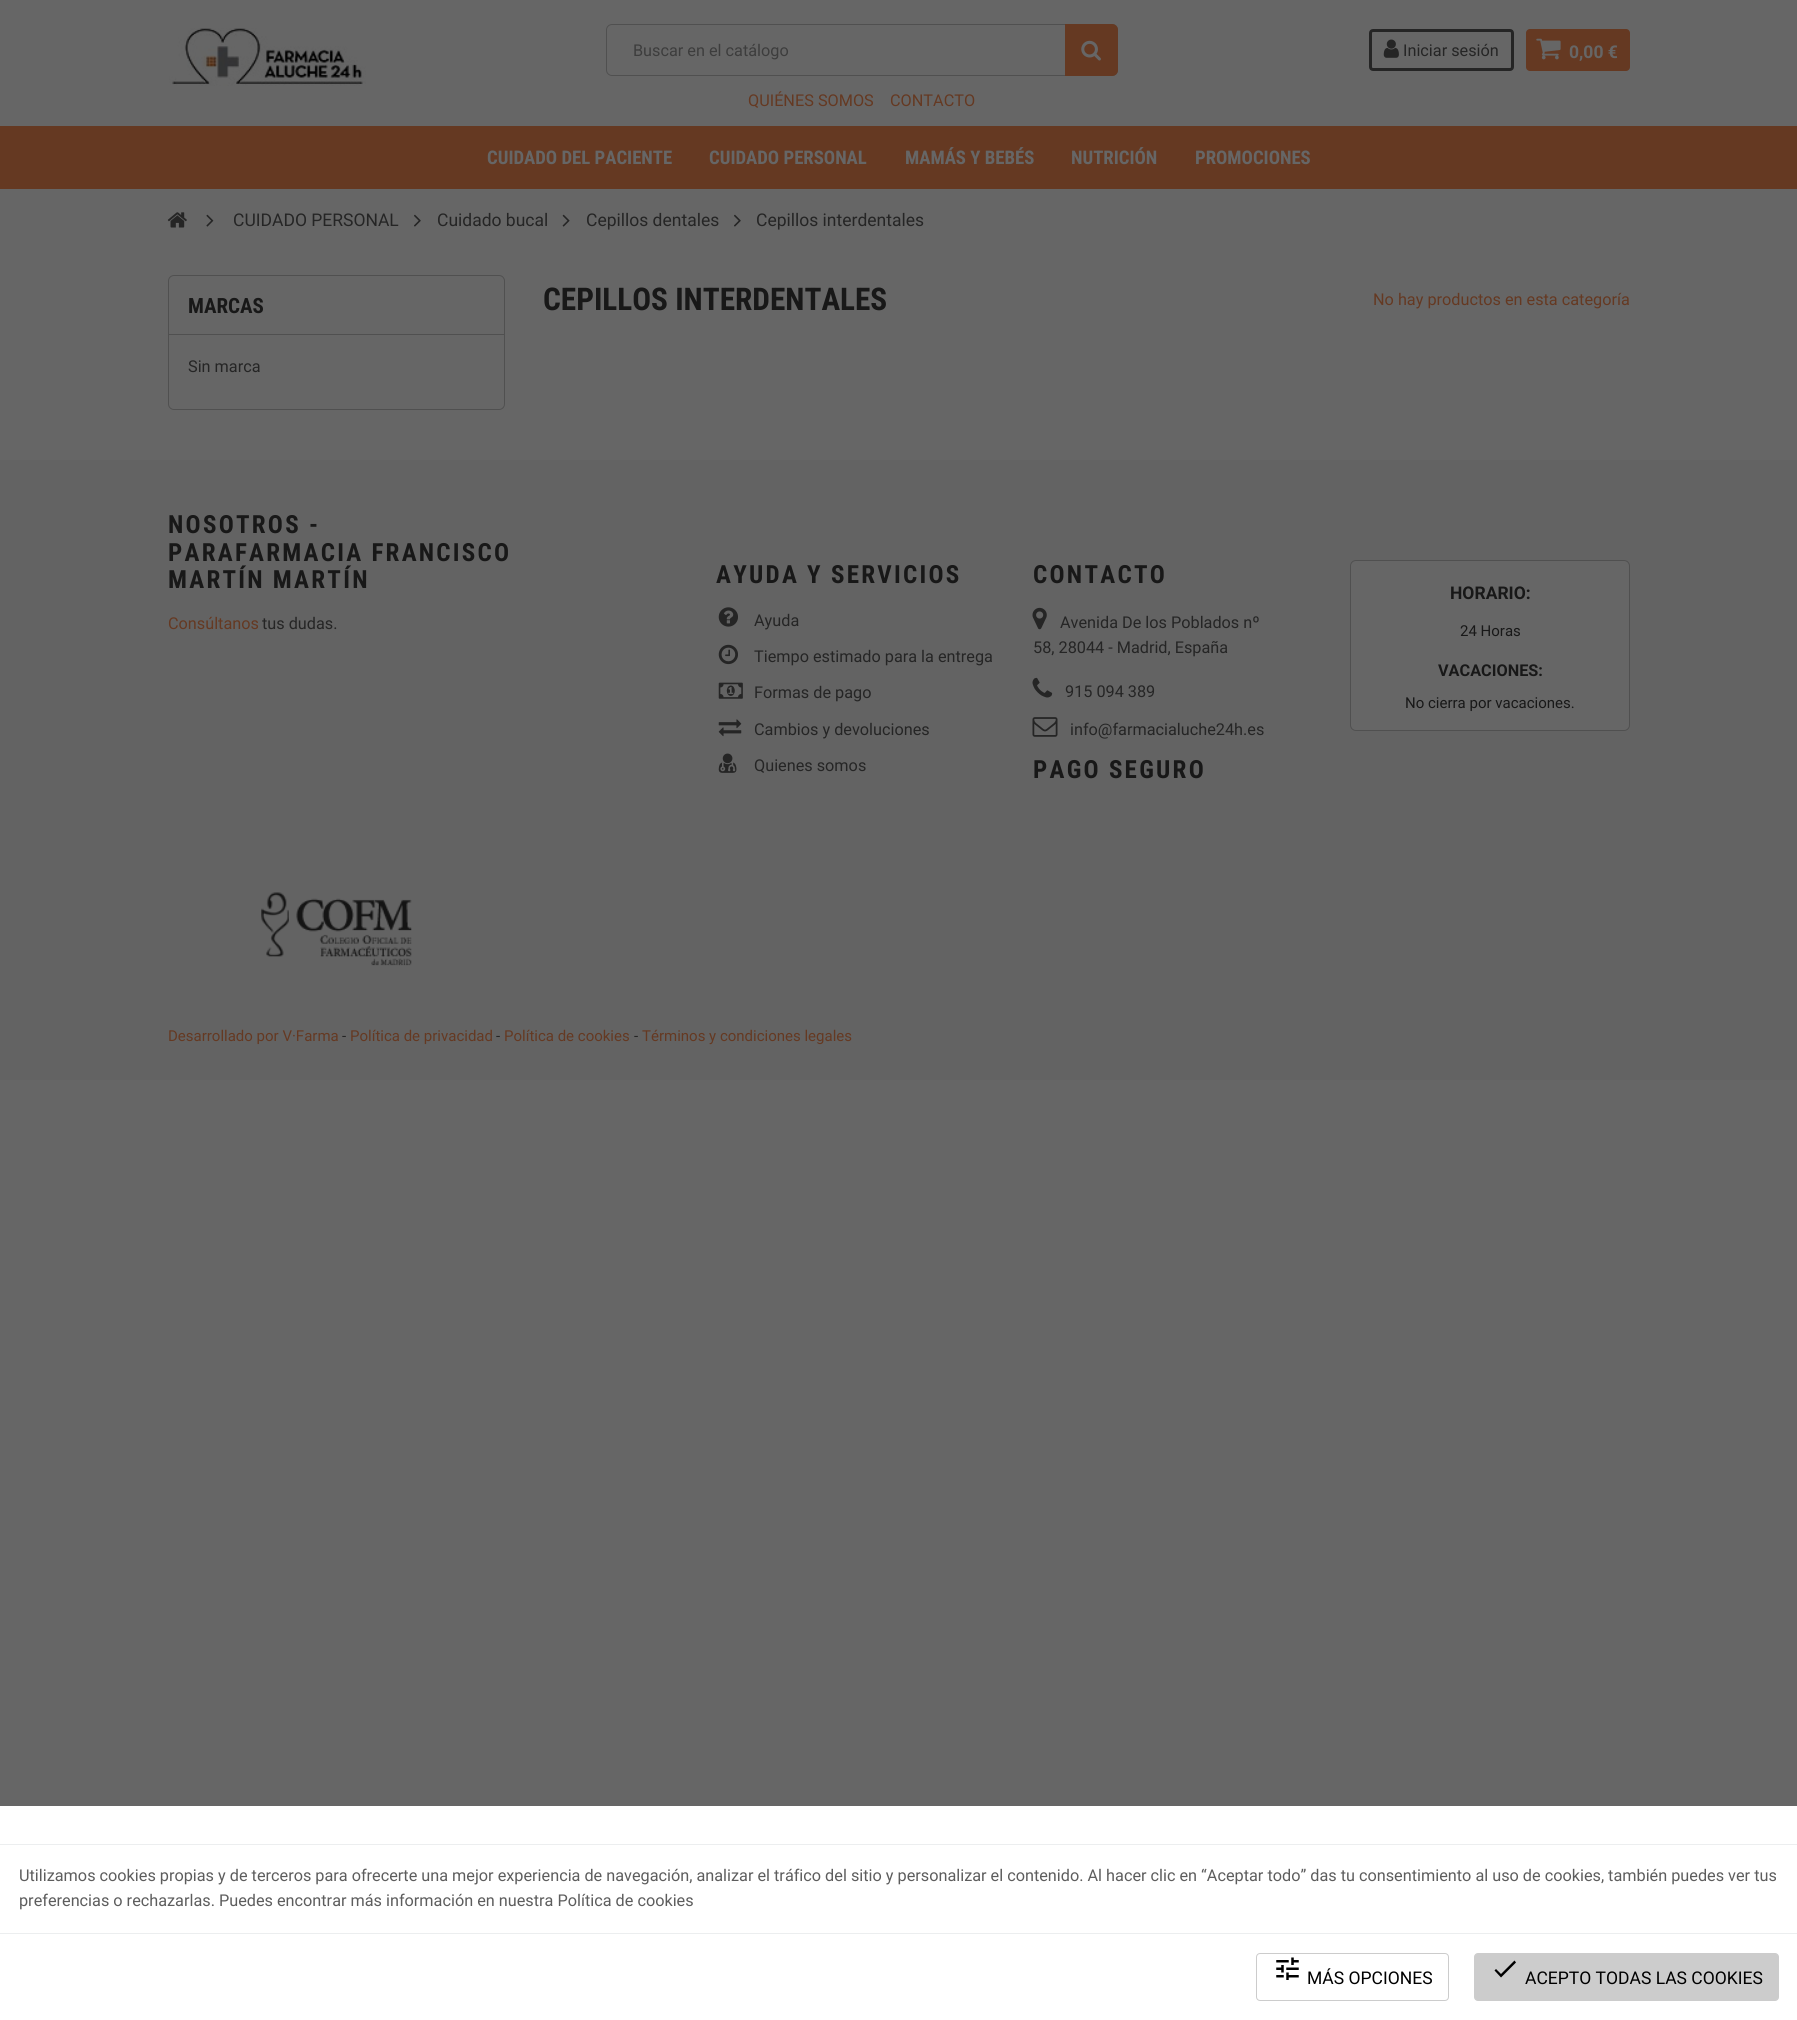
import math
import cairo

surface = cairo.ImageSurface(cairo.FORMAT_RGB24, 1797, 2020)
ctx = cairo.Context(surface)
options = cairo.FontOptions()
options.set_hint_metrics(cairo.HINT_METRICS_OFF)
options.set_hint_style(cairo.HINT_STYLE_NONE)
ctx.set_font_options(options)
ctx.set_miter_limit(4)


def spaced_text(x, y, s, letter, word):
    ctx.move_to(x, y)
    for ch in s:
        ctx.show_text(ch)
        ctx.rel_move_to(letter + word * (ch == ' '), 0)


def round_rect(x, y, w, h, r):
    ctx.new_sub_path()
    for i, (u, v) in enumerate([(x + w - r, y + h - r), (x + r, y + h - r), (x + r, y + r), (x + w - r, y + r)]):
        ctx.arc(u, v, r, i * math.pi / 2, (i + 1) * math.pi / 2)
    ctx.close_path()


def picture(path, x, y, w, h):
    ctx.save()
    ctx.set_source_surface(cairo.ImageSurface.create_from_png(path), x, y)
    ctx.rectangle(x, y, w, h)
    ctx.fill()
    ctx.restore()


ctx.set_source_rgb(0.4, 0.4, 0.4)
ctx.paint()
picture("img1.png", 169, 28, 197, 58)
round_rect(606.5, 24.5, 511, 51, 5.5)
ctx.set_source_rgb(0.314, 0.314, 0.314)
ctx.set_line_width(1)
ctx.stroke()
ctx.select_font_face("Roboto")
ctx.set_font_size(16.25)
ctx.set_source_rgb(0.239, 0.239, 0.239)
ctx.move_to(633, 56)
ctx.show_text("Buscar en el catálogo")
ctx.set_source_rgb(0.396, 0.224, 0.133)
ctx.new_path()
ctx.move_to(1065, 24)
ctx.line_to(1112, 24)
ctx.curve_to(1115.5, 24, 1118, 26.5, 1118, 30)
ctx.line_to(1118, 70)
ctx.curve_to(1118, 73.5, 1115.5, 76, 1112, 76)
ctx.line_to(1065, 76)
ctx.close_path()
ctx.fill()
picture("img2.png", 1081, 40, 20, 21)
ctx.move_to(748, 106)
ctx.show_text("QUIÉNES SOMOS")
ctx.move_to(890, 106)
ctx.show_text("CONTACTO")
round_rect(1370.5, 30.5, 142, 39, 2.5)
ctx.set_source_rgb(0.145, 0.145, 0.145)
ctx.set_line_width(3)
ctx.stroke()
picture("img3.png", 1383, 39, 16, 19)
ctx.move_to(1403, 56)
ctx.show_text("Iniciar sesión")
ctx.set_source_rgb(0.396, 0.224, 0.133)
round_rect(1526, 29, 104, 42, 4)
ctx.fill()
picture("img4.png", 1536, 38, 25, 22)
ctx.select_font_face("Roboto", cairo.FONT_SLANT_NORMAL, cairo.FONT_WEIGHT_BOLD)
ctx.set_font_size(17.5)
ctx.set_source_rgb(0.4, 0.4, 0.4)
ctx.move_to(1569, 58)
ctx.show_text("0,00 €")
ctx.set_source_rgb(0.396, 0.224, 0.133)
ctx.rectangle(0, 126, 1797, 63)
ctx.fill()
ctx.select_font_face("Roboto Condensed", cairo.FONT_SLANT_NORMAL, cairo.FONT_WEIGHT_BOLD)
ctx.set_font_size(18.75)
ctx.set_source_rgb(0.4, 0.4, 0.4)
ctx.move_to(487, 164)
ctx.show_text("CUIDADO DEL PACIENTE")
ctx.move_to(709, 164)
ctx.show_text("CUIDADO PERSONAL")
ctx.move_to(905, 164)
ctx.show_text("MAMÁS Y BEBÉS")
ctx.move_to(1071, 164)
ctx.show_text("NUTRICIÓN")
ctx.move_to(1195, 164)
ctx.show_text("PROMOCIONES")
picture("img5.png", 167, 212, 20, 16)
picture("img6.png", 206, 214, 8, 13)
ctx.select_font_face("Roboto")
ctx.set_font_size(17.5)
ctx.set_source_rgb(0.145, 0.145, 0.145)
ctx.move_to(233, 226)
ctx.show_text("CUIDADO PERSONAL")
picture("img7.png", 414, 214, 7, 13)
ctx.move_to(437, 226)
ctx.show_text("Cuidado bucal")
picture("img8.png", 562, 214, 8, 13)
ctx.move_to(586, 226)
ctx.show_text("Cepillos dentales")
picture("img7.png", 734, 214, 7, 13)
ctx.move_to(756, 226)
ctx.show_text("Cepillos interdentales")
round_rect(168.5, 275.5, 336, 134, 5.5)
ctx.set_source_rgb(0.314, 0.314, 0.314)
ctx.set_line_width(1)
ctx.stroke()
ctx.rectangle(169, 334, 335, 1)
ctx.fill()
ctx.select_font_face("Roboto Condensed", cairo.FONT_SLANT_NORMAL, cairo.FONT_WEIGHT_BOLD)
ctx.set_font_size(21)
ctx.set_source_rgb(0.094, 0.094, 0.094)
ctx.move_to(188, 313)
ctx.show_text("MARCAS")
ctx.select_font_face("Roboto")
ctx.set_font_size(16.25)
ctx.set_source_rgb(0.145, 0.145, 0.145)
ctx.move_to(188, 372)
ctx.show_text("Sin marca")
ctx.select_font_face("Roboto Condensed", cairo.FONT_SLANT_NORMAL, cairo.FONT_WEIGHT_BOLD)
ctx.set_font_size(31.25)
ctx.set_source_rgb(0.094, 0.094, 0.094)
ctx.move_to(543, 310)
ctx.show_text("CEPILLOS INTERDENTALES")
ctx.select_font_face("Roboto")
ctx.set_font_size(16.25)
ctx.set_source_rgb(0.396, 0.224, 0.133)
ctx.move_to(1373, 305)
ctx.show_text("No hay productos en esta categoría")
ctx.set_source_rgb(0.388, 0.388, 0.388)
ctx.rectangle(0, 460, 1797, 620)
ctx.fill()
ctx.select_font_face("Roboto Condensed", cairo.FONT_SLANT_NORMAL, cairo.FONT_WEIGHT_BOLD)
ctx.set_font_size(25)
ctx.set_source_rgb(0.094, 0.094, 0.094)
spaced_text(168, 533, "NOSOTROS -", 2.25, 0)
spaced_text(168, 561, "PARAFARMACIA FRANCISCO", 2.25, 0)
spaced_text(168, 588, "MARTÍN MARTÍN", 2.25, 0)
ctx.select_font_face("Roboto")
ctx.set_font_size(16.25)
ctx.set_source_rgb(0.396, 0.224, 0.133)
ctx.move_to(168, 629)
ctx.show_text("Consúltanos")
ctx.set_source_rgb(0.145, 0.145, 0.145)
ctx.move_to(262, 629)
ctx.show_text("tus dudas.")
ctx.select_font_face("Roboto Condensed", cairo.FONT_SLANT_NORMAL, cairo.FONT_WEIGHT_BOLD)
ctx.set_font_size(25)
ctx.set_source_rgb(0.094, 0.094, 0.094)
spaced_text(716, 583, "AYUDA Y SERVICIOS", 2.25, 0)
picture("img9.png", 718, 607, 20, 20)
ctx.select_font_face("Roboto")
ctx.set_font_size(16.25)
ctx.set_source_rgb(0.145, 0.145, 0.145)
ctx.move_to(754, 626)
ctx.show_text("Ayuda")
picture("img10.png", 718, 644, 20, 21)
ctx.move_to(754, 662)
ctx.show_text("Tiempo estimado para la entrega")
picture("img11.png", 718, 682, 25, 17)
ctx.move_to(754, 698)
ctx.show_text("Formas de pago")
picture("img12.png", 718, 719, 24, 18)
ctx.move_to(754, 735)
ctx.show_text("Cambios y devoluciones")
picture("img13.png", 718, 753, 19, 20)
ctx.move_to(754, 771)
ctx.show_text("Quienes somos")
ctx.select_font_face("Roboto Condensed", cairo.FONT_SLANT_NORMAL, cairo.FONT_WEIGHT_BOLD)
ctx.set_font_size(25)
ctx.set_source_rgb(0.094, 0.094, 0.094)
spaced_text(1033, 583, "CONTACTO", 2.25, 0)
picture("img14.png", 1032, 607, 15, 23)
ctx.select_font_face("Roboto")
ctx.set_font_size(16.25)
ctx.set_source_rgb(0.145, 0.145, 0.145)
ctx.move_to(1060, 628)
ctx.show_text("Avenida De los Poblados nº")
ctx.move_to(1033, 653)
ctx.show_text("58, 28044 - Madrid, España")
picture("img15.png", 1032, 677, 21, 21)
ctx.move_to(1065, 697)
ctx.show_text("915 094 389")
picture("img16.png", 1032, 717, 26, 20)
ctx.move_to(1070, 735)
ctx.show_text("info@farmacialuche24h.es")
ctx.set_source_rgb(0.4, 0.4, 0.4)
round_rect(1350.5, 560.5, 279, 170, 5.5)
ctx.fill_preserve()
ctx.set_source_rgb(0.314, 0.314, 0.314)
ctx.stroke()
ctx.select_font_face("Roboto", cairo.FONT_SLANT_NORMAL, cairo.FONT_WEIGHT_BOLD)
ctx.set_font_size(17.5)
ctx.set_source_rgb(0.094, 0.094, 0.094)
ctx.move_to(1450, 599)
ctx.show_text("HORARIO:")
ctx.select_font_face("Roboto")
ctx.set_font_size(15)
ctx.move_to(1460, 636)
ctx.show_text("24 Horas")
ctx.select_font_face("Roboto", cairo.FONT_SLANT_NORMAL, cairo.FONT_WEIGHT_BOLD)
ctx.set_font_size(16.25)
ctx.move_to(1438, 676)
ctx.show_text("VACACIONES:")
ctx.select_font_face("Roboto")
ctx.set_font_size(15)
ctx.move_to(1405, 708)
ctx.show_text("No cierra por vacaciones.")
ctx.select_font_face("Roboto Condensed", cairo.FONT_SLANT_NORMAL, cairo.FONT_WEIGHT_BOLD)
ctx.set_font_size(25)
spaced_text(1033, 778, "PAGO SEGURO", 2.25, 0)
picture("img17.png", 261, 892, 151, 74)
ctx.select_font_face("Roboto")
ctx.set_font_size(15)
ctx.set_source_rgb(0.396, 0.224, 0.133)
ctx.move_to(168, 1041)
ctx.show_text("Desarrollado por V·Farma")
ctx.set_source_rgb(0.145, 0.145, 0.145)
ctx.move_to(342, 1041)
ctx.show_text("-")
ctx.set_source_rgb(0.396, 0.224, 0.133)
ctx.move_to(350, 1041)
ctx.show_text("Política de privacidad")
ctx.set_source_rgb(0.145, 0.145, 0.145)
ctx.move_to(496, 1041)
ctx.show_text("-")
ctx.set_source_rgb(0.396, 0.224, 0.133)
ctx.move_to(504, 1041)
ctx.show_text("Política de cookies")
ctx.set_source_rgb(0.145, 0.145, 0.145)
ctx.move_to(634, 1041)
ctx.show_text("-")
ctx.set_source_rgb(0.396, 0.224, 0.133)
ctx.move_to(642, 1041)
ctx.show_text("Términos y condiciones legales")
ctx.set_source_rgb(1, 1, 1)
ctx.rectangle(0, 1806, 1797, 214)
ctx.fill()
ctx.set_source_rgb(0.925, 0.933, 0.937)
ctx.rectangle(0, 1844, 1797, 1)
ctx.fill()
ctx.set_font_size(16.25)
ctx.set_source_rgb(0.365, 0.365, 0.365)
ctx.move_to(19, 1881)
ctx.show_text("Utilizamos cookies propias y de terceros para ofrecerte una mejor experiencia de navegación, analizar el tráfico del sitio y personalizar el contenido. Al hacer clic en “Aceptar todo” das tu consentimiento al uso de cookies, también puedes ver tus")
ctx.move_to(19, 1906)
ctx.show_text("preferencias o rechazarlas. Puedes encontrar más información en nuestra Política de cookies")
ctx.set_source_rgb(0.925, 0.933, 0.937)
ctx.rectangle(0, 1933, 1797, 1)
ctx.fill()
round_rect(1256.5, 1953.5, 192, 47, 3.5)
ctx.set_source_rgb(0.8, 0.8, 0.8)
ctx.stroke()
picture("img18.png", 1276, 1957, 23, 23)
ctx.set_font_size(17.5)
ctx.set_source_rgb(0, 0, 0)
ctx.move_to(1307, 1984)
ctx.show_text("MÁS OPCIONES")
ctx.set_source_rgb(0.8, 0.8, 0.8)
round_rect(1474.5, 1953.5, 304, 47, 3.5)
ctx.fill_preserve()
ctx.stroke()
ctx.set_source_rgb(0, 0, 0)
ctx.new_path()
ctx.move_to(1501, 1974)
ctx.line_to(1514.5, 1960.5)
ctx.line_to(1516, 1962.5)
ctx.line_to(1501, 1977.5)
ctx.line_to(1494.5, 1970.5)
ctx.line_to(1496, 1969)
ctx.close_path()
ctx.fill()
ctx.move_to(1525, 1984)
ctx.show_text("ACEPTO TODAS LAS COOKIES")
surface.write_to_png("page.png")
